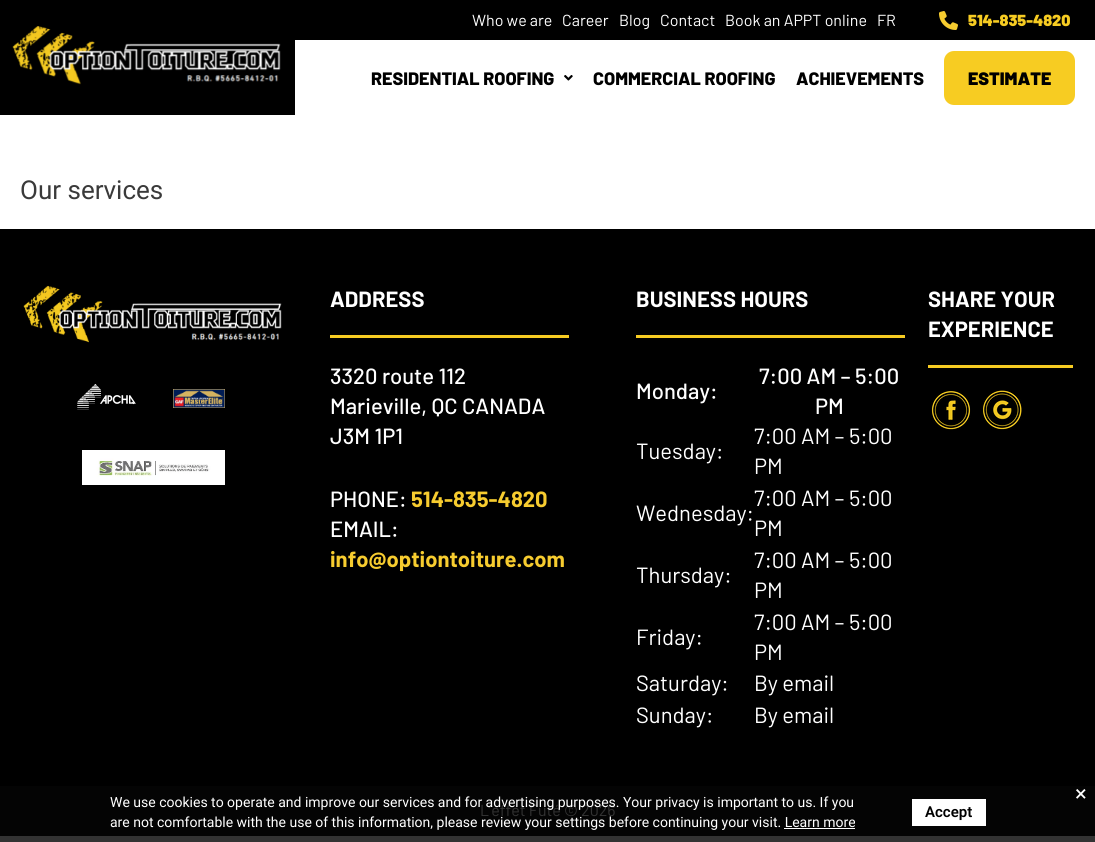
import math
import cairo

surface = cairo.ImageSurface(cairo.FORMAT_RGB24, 1095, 842)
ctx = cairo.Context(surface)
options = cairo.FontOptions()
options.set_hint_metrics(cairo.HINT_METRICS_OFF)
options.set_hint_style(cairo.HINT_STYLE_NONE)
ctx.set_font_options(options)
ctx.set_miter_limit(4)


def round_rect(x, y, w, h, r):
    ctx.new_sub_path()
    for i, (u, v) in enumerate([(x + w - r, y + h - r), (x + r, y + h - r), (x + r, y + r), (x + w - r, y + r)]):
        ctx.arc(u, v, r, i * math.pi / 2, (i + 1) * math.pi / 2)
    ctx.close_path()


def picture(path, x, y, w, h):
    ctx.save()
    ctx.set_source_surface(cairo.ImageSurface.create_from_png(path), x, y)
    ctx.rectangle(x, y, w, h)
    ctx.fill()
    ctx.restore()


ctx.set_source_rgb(1, 1, 1)
ctx.paint()
ctx.set_source_rgb(0.2, 0.2, 0.2)
ctx.rectangle(0, 836, 1095, 6)
ctx.fill()
ctx.set_source_rgb(0, 0, 0)
ctx.rectangle(0, 0, 295, 115)
ctx.fill()
picture("img1.png", 12, 26, 269, 59)
ctx.rectangle(295, 0, 800, 40)
ctx.fill()
ctx.select_font_face("Barlow")
ctx.set_font_size(16)
ctx.set_source_rgb(1, 1, 1)
ctx.move_to(472, 26)
ctx.show_text("Who we are")
ctx.move_to(562, 26)
ctx.show_text("Career")
ctx.move_to(619, 26)
ctx.show_text("Blog")
ctx.move_to(660, 26)
ctx.show_text("Contact")
ctx.move_to(725, 26)
ctx.show_text("Book an APPT online")
ctx.move_to(877, 26)
ctx.show_text("FR")
picture("img2.png", 939, 11, 19, 19)
ctx.select_font_face("Barlow Black")
ctx.set_source_rgb(0.965, 0.8, 0.133)
ctx.move_to(968, 26)
ctx.show_text("514-835-4820")
ctx.select_font_face("Barlow ExtraBold")
ctx.set_font_size(18)
ctx.set_source_rgb(0, 0, 0)
ctx.move_to(371, 85)
ctx.show_text("RESIDENTIAL ROOFING")
picture("img3.png", 564, 75, 9, 6)
ctx.move_to(593, 85)
ctx.show_text("COMMERCIAL ROOFING")
ctx.move_to(796, 85)
ctx.show_text("ACHIEVEMENTS")
ctx.set_source_rgb(0.965, 0.8, 0.133)
round_rect(944, 51, 131, 54, 10)
ctx.fill()
ctx.select_font_face("Barlow Black")
ctx.set_source_rgb(0, 0, 0)
ctx.move_to(968, 85)
ctx.show_text("ESTIMATE")
ctx.select_font_face("Roboto")
ctx.set_font_size(26)
ctx.set_source_rgb(0.227, 0.227, 0.227)
ctx.move_to(20, 199)
ctx.show_text("Our services")
ctx.set_source_rgb(0, 0, 0)
ctx.rectangle(0, 229, 1095, 557)
ctx.fill()
picture("img4.png", 23, 285, 259, 58)
picture("img5.png", 77, 384, 59, 26)
picture("img6.png", 173, 389, 52, 19)
picture("img7.png", 82, 450, 143, 35)
ctx.select_font_face("Barlow", cairo.FONT_SLANT_NORMAL, cairo.FONT_WEIGHT_BOLD)
ctx.set_font_size(22)
ctx.set_source_rgb(1, 1, 1)
ctx.move_to(330, 307)
ctx.show_text("ADDRESS")
ctx.set_source_rgb(0.965, 0.8, 0.133)
ctx.rectangle(330, 335, 239, 3)
ctx.fill()
ctx.select_font_face("Barlow Medium")
ctx.set_source_rgb(1, 1, 1)
ctx.move_to(330, 384)
ctx.show_text("3320 route 112")
ctx.move_to(330, 414)
ctx.show_text("Marieville, QC CANADA")
ctx.move_to(330, 444)
ctx.show_text("J3M 1P1")
ctx.move_to(330, 507)
ctx.show_text("PHONE:")
ctx.select_font_face("Barlow", cairo.FONT_SLANT_NORMAL, cairo.FONT_WEIGHT_BOLD)
ctx.set_source_rgb(0.965, 0.8, 0.184)
ctx.move_to(411, 507)
ctx.show_text("514-835-4820")
ctx.select_font_face("Barlow Medium")
ctx.set_source_rgb(1, 1, 1)
ctx.move_to(330, 537)
ctx.show_text("EMAIL:")
ctx.select_font_face("Barlow", cairo.FONT_SLANT_NORMAL, cairo.FONT_WEIGHT_BOLD)
ctx.set_source_rgb(0.965, 0.8, 0.184)
ctx.move_to(330, 567)
ctx.show_text("info@optiontoiture.com")
ctx.set_source_rgb(1, 1, 1)
ctx.move_to(636, 307)
ctx.show_text("BUSINESS HOURS")
ctx.set_source_rgb(0.965, 0.8, 0.133)
ctx.rectangle(636, 335, 269, 3)
ctx.fill()
ctx.select_font_face("Barlow Medium")
ctx.set_source_rgb(1, 1, 1)
ctx.move_to(636, 399)
ctx.show_text("Monday:")
ctx.move_to(759, 384)
ctx.show_text("7:00 AM – 5:00")
ctx.move_to(815, 414)
ctx.show_text("PM")
ctx.select_font_face("Barlow")
ctx.move_to(636, 459)
ctx.show_text("Tuesday:")
ctx.move_to(754, 444)
ctx.show_text("7:00 AM – 5:00")
ctx.move_to(754, 474)
ctx.show_text("PM")
ctx.move_to(636, 521)
ctx.show_text("Wednesday:")
ctx.move_to(754, 506)
ctx.show_text("7:00 AM – 5:00")
ctx.move_to(754, 536)
ctx.show_text("PM")
ctx.move_to(636, 583)
ctx.show_text("Thursday:")
ctx.move_to(754, 568)
ctx.show_text("7:00 AM – 5:00")
ctx.move_to(754, 598)
ctx.show_text("PM")
ctx.move_to(636, 645)
ctx.show_text("Friday:")
ctx.move_to(754, 630)
ctx.show_text("7:00 AM – 5:00")
ctx.move_to(754, 660)
ctx.show_text("PM")
ctx.move_to(636, 691)
ctx.show_text("Saturday:")
ctx.move_to(754, 691)
ctx.show_text("By email")
ctx.move_to(636, 723)
ctx.show_text("Sunday:")
ctx.move_to(754, 723)
ctx.show_text("By email")
ctx.select_font_face("Barlow", cairo.FONT_SLANT_NORMAL, cairo.FONT_WEIGHT_BOLD)
ctx.move_to(928, 307)
ctx.show_text("SHARE YOUR")
ctx.move_to(928, 337)
ctx.show_text("EXPERIENCE")
ctx.set_source_rgb(0.965, 0.8, 0.133)
ctx.rectangle(928, 365, 145, 3)
ctx.fill()
picture("img8.png", 931, 391, 40, 39)
picture("img9.png", 983, 390, 39, 40)
ctx.set_source_rgb(0.016, 0.016, 0.016)
ctx.rectangle(0, 786, 1095, 50)
ctx.fill()
ctx.select_font_face("Barlow")
ctx.set_font_size(16)
ctx.set_source_rgb(0.2, 0.2, 0.2)
ctx.move_to(480, 816)
ctx.show_text("L’effet Futé © 2026")
ctx.select_font_face("Roboto")
ctx.set_font_size(22)
ctx.set_source_rgb(1, 1, 1)
ctx.move_to(1075, 801)
ctx.show_text("×")
ctx.set_font_size(14)
ctx.move_to(110, 807)
ctx.show_text("We use cookies to operate and improve our services and for advertising purposes. Your privacy is important to us. If you")
ctx.move_to(110, 827)
ctx.show_text("are not comfortable with the use of this information, please review your settings before continuing your visit. Learn more")
ctx.rectangle(784, 828, 71, 1)
ctx.fill()
ctx.rectangle(912, 799, 74, 27)
ctx.fill()
ctx.select_font_face("Roboto SemiBold")
ctx.set_font_size(15)
ctx.set_source_rgb(0, 0, 0)
ctx.move_to(925, 817)
ctx.show_text("Accept")
surface.write_to_png("page.png")
